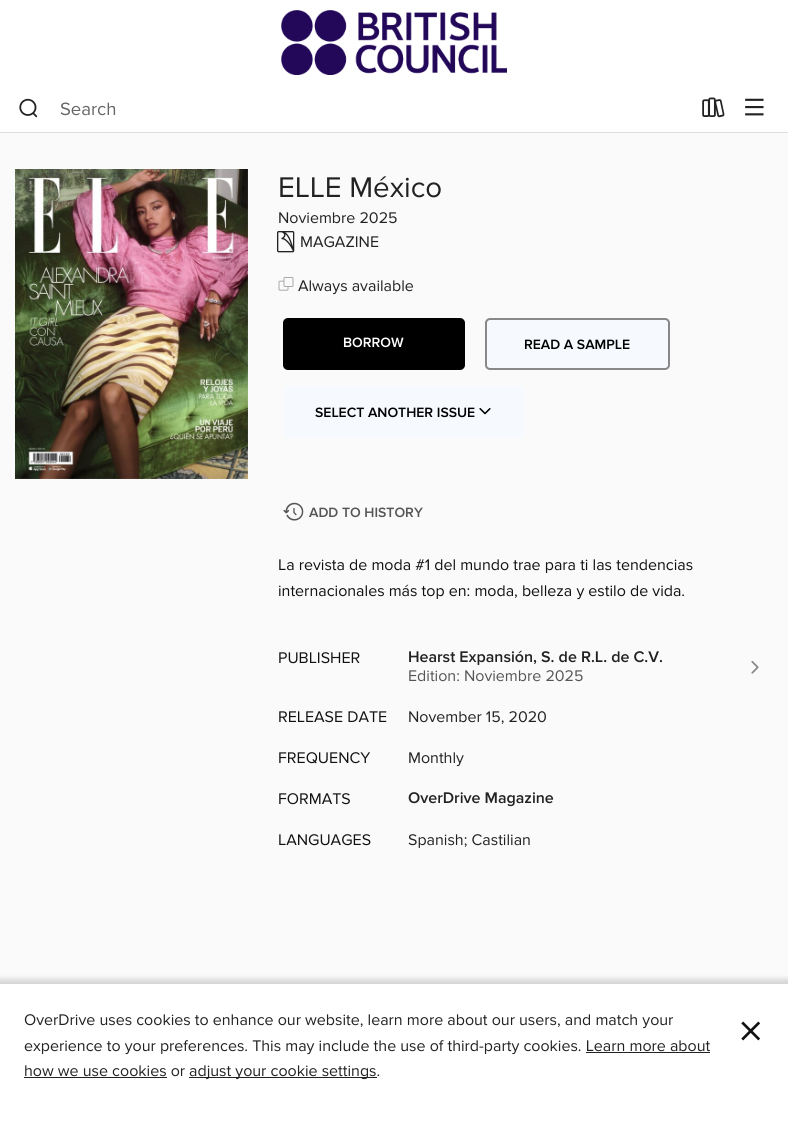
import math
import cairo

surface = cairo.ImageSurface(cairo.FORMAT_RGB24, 788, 1129)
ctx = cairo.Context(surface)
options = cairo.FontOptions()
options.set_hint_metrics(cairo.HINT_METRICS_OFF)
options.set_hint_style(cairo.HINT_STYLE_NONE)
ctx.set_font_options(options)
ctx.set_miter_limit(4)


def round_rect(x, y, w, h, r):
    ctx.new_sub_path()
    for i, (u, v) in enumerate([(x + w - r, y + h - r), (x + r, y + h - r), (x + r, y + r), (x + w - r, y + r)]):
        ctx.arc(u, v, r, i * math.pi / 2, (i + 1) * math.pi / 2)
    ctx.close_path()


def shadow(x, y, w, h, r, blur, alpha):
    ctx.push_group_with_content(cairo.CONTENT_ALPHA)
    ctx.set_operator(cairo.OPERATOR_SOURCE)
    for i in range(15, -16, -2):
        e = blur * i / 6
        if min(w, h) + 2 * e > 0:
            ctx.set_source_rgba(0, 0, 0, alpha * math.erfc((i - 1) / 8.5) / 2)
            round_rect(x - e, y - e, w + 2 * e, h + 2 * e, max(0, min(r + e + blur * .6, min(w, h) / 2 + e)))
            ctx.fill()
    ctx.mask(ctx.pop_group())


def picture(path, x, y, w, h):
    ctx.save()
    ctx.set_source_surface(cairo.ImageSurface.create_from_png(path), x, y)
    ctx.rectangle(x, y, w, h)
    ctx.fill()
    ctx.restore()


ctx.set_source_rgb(0.98, 0.98, 0.98)
ctx.paint()
ctx.set_source_rgb(1, 1, 1)
ctx.rectangle(0, 0, 788, 132)
ctx.fill()
picture("img1.png", 281, 10, 226, 65)
ctx.set_source_rgb(0.867, 0.867, 0.867)
ctx.rectangle(0, 132, 788, 1)
ctx.fill()
picture("img2.png", 19, 98, 19, 20)
ctx.select_font_face("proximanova")
ctx.set_font_size(18.5)
ctx.set_source_rgb(0.4, 0.4, 0.4)
ctx.move_to(60, 115)
ctx.show_text("Search")
picture("img3.png", 702, 97, 23, 21)
picture("img4.png", 745, 98, 19, 18)
picture("img5.png", 15, 169, 233, 310)
ctx.set_font_size(29.5)
ctx.set_source_rgb(0.133, 0.133, 0.133)
ctx.move_to(278, 197)
ctx.show_text("ELLE México")
ctx.set_font_size(16)
ctx.move_to(278, 223)
ctx.show_text("Noviembre 2025")
picture("img6.png", 277, 231, 18, 22)
ctx.move_to(300, 247)
ctx.show_text("MAGAZINE")
picture("img7.png", 278, 277, 16, 14)
ctx.move_to(298, 291)
ctx.show_text("Always available")
ctx.set_source_rgb(0, 0, 0)
round_rect(283, 318, 182, 52, 5)
ctx.fill()
ctx.select_font_face("Proxima Nova SemiBold")
ctx.set_font_size(14)
ctx.set_source_rgb(1, 1, 1)
ctx.move_to(343, 347)
ctx.show_text("BORROW")
ctx.set_source_rgb(0.961, 0.973, 0.996)
round_rect(486, 319, 183, 50, 4)
ctx.fill_preserve()
ctx.set_source_rgb(0.533, 0.533, 0.533)
ctx.stroke()
ctx.set_source_rgb(0, 0, 0)
ctx.move_to(524, 349)
ctx.show_text("READ A SAMPLE")
ctx.set_source_rgb(0.961, 0.973, 0.996)
round_rect(283, 386, 241, 52, 5)
ctx.fill()
ctx.set_source_rgb(0, 0, 0)
ctx.move_to(315, 417)
ctx.show_text("SELECT ANOTHER ISSUE")
picture("img8.png", 479, 408, 12, 7)
picture("img9.png", 283, 502, 21, 19)
ctx.set_source_rgb(0.333, 0.333, 0.333)
ctx.move_to(309, 517)
ctx.show_text("ADD TO HISTORY")
ctx.select_font_face("proximanova")
ctx.set_font_size(16)
ctx.set_source_rgb(0.067, 0.067, 0.067)
ctx.move_to(278, 570)
ctx.show_text("La revista de moda #1 del mundo trae para ti las tendencias")
ctx.move_to(278, 596)
ctx.show_text("internacionales más top en: moda, belleza y estilo de vida.")
ctx.move_to(278, 663)
ctx.show_text("PUBLISHER")
ctx.select_font_face("Proxima Nova SemiBold")
ctx.set_source_rgb(0.133, 0.133, 0.133)
ctx.move_to(408, 662)
ctx.show_text("Hearst Expansión, S. de R.L. de C.V.")
ctx.select_font_face("proximanova")
ctx.set_source_rgb(0.333, 0.333, 0.333)
ctx.move_to(408, 681)
ctx.show_text("Edition: Noviembre 2025")
picture("img10.png", 751, 660, 8, 14)
ctx.set_source_rgb(0.067, 0.067, 0.067)
ctx.move_to(278, 722)
ctx.show_text("RELEASE DATE")
ctx.set_source_rgb(0.133, 0.133, 0.133)
ctx.move_to(408, 722)
ctx.show_text("November 15, 2020")
ctx.set_source_rgb(0.067, 0.067, 0.067)
ctx.move_to(278, 763)
ctx.show_text("FREQUENCY")
ctx.set_source_rgb(0.133, 0.133, 0.133)
ctx.move_to(408, 763)
ctx.show_text("Monthly")
ctx.set_source_rgb(0.067, 0.067, 0.067)
ctx.move_to(278, 804)
ctx.show_text("FORMATS")
ctx.select_font_face("Proxima Nova SemiBold")
ctx.set_source_rgb(0.133, 0.133, 0.133)
ctx.move_to(408, 803)
ctx.show_text("OverDrive Magazine")
ctx.select_font_face("proximanova")
ctx.set_source_rgb(0.067, 0.067, 0.067)
ctx.move_to(278, 845)
ctx.show_text("LANGUAGES")
ctx.set_source_rgb(0.133, 0.133, 0.133)
ctx.move_to(408, 845)
ctx.show_text("Spanish; Castilian")
ctx.set_source_rgb(0, 0, 0)
shadow(-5, 979, 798, 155, 0, 2.5, 0.15)
ctx.set_source_rgb(1, 1, 1)
ctx.rectangle(0, 984, 788, 145)
ctx.fill()
ctx.set_source_rgb(0.133, 0.133, 0.133)
ctx.move_to(24, 1025)
ctx.show_text("OverDrive uses cookies to enhance our website, learn more about our users, and match your")
ctx.move_to(24, 1051)
ctx.show_text("experience to your preferences. This may include the use of third-party cookies. Learn more about")
ctx.rectangle(586, 1052, 124, 1)
ctx.fill()
ctx.move_to(24, 1076)
ctx.show_text("how we use cookies or")
ctx.rectangle(24, 1077, 143, 1)
ctx.fill()
ctx.rectangle(189, 1077, 188, 1)
ctx.fill()
ctx.move_to(189, 1076)
ctx.show_text("adjust your cookie settings.")
ctx.set_font_size(51)
ctx.set_source_rgb(0.067, 0.067, 0.067)
ctx.move_to(738, 1048)
ctx.show_text("×")
surface.write_to_png("page.png")
